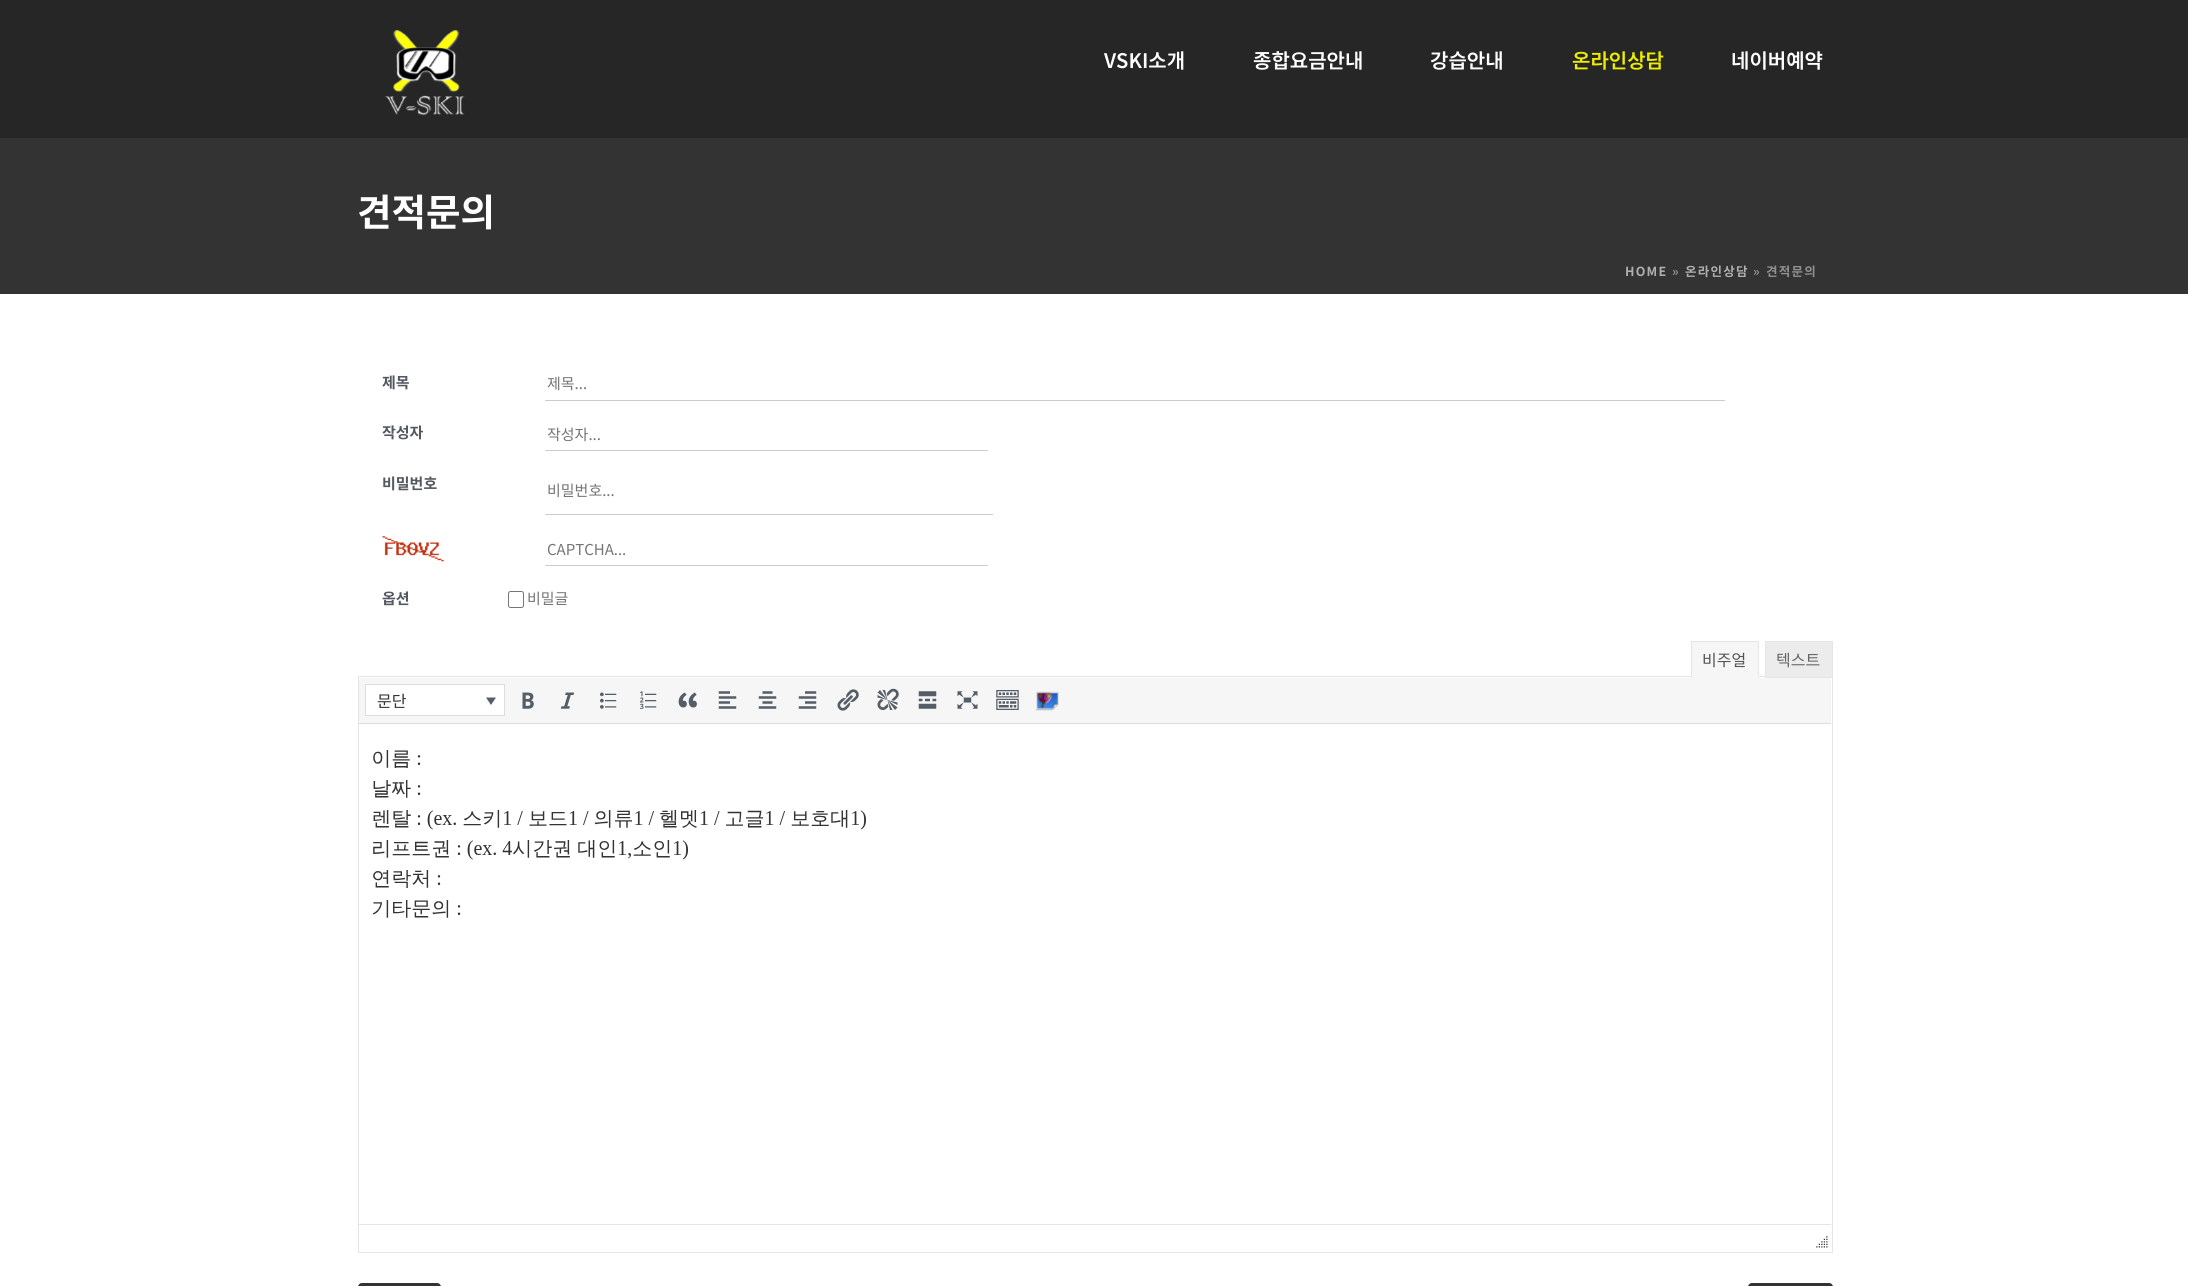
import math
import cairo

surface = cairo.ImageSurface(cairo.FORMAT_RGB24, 2188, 1286)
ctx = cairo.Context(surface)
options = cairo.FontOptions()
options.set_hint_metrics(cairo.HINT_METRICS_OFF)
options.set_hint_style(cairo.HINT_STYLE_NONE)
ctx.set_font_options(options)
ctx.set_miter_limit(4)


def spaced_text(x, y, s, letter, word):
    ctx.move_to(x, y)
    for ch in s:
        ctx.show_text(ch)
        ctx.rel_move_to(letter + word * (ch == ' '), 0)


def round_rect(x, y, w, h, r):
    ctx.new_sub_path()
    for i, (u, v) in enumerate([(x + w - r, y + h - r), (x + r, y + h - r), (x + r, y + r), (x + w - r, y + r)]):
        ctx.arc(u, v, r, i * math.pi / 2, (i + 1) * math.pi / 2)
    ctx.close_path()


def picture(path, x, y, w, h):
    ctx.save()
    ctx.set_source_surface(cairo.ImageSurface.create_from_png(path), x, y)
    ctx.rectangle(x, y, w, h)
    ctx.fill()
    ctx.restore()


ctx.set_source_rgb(1, 1, 1)
ctx.paint()
ctx.set_source_rgb(0.149, 0.149, 0.149)
ctx.rectangle(0, 0, 2188, 138)
ctx.fill()
picture("img1.png", 385, 30, 80, 86)
ctx.select_font_face("Noto Sans KR SemiBold")
ctx.set_font_size(20)
ctx.set_source_rgb(1, 1, 1)
ctx.move_to(1104, 68)
ctx.show_text("VSKI소개")
ctx.move_to(1253, 68)
ctx.show_text("종합요금안내")
ctx.move_to(1430, 68)
ctx.show_text("강습안내")
ctx.set_source_rgb(0.929, 0.929, 0)
ctx.move_to(1572, 68)
ctx.show_text("온라인상담")
ctx.set_source_rgb(1, 1, 1)
ctx.move_to(1731, 68)
ctx.show_text("네이버예약")
ctx.set_source_rgb(0.2, 0.2, 0.2)
ctx.rectangle(0, 138, 2188, 156)
ctx.fill()
ctx.select_font_face("Noto Sans KR", cairo.FONT_SLANT_NORMAL, cairo.FONT_WEIGHT_BOLD)
ctx.set_font_size(37.5)
ctx.set_source_rgb(1, 1, 1)
ctx.move_to(357, 226)
ctx.show_text("견적문의")
ctx.set_font_size(12.5)
ctx.set_source_rgb(0.686, 0.686, 0.686)
spaced_text(1625, 276, "HOME", 1.25, 0)
ctx.set_source_rgb(0.569, 0.569, 0.569)
spaced_text(1672, 276, "»", 1.25, 0)
ctx.set_source_rgb(0.686, 0.686, 0.686)
spaced_text(1685, 276, "온라인상담", 1.25, 0)
ctx.set_source_rgb(0.569, 0.569, 0.569)
spaced_text(1753, 276, "»", 1.25, 0)
spaced_text(1766, 276, "견적문의", 1.25, 0)
ctx.set_font_size(15)
ctx.set_source_rgb(0.329, 0.345, 0.38)
ctx.move_to(382, 388)
ctx.show_text("제목")
ctx.set_source_rgb(0.8, 0.8, 0.8)
ctx.rectangle(545, 400, 1180, 1)
ctx.fill()
ctx.select_font_face("Noto Sans KR")
ctx.set_source_rgb(0.459, 0.459, 0.459)
ctx.move_to(547, 389)
ctx.show_text("제목...")
ctx.select_font_face("Noto Sans KR", cairo.FONT_SLANT_NORMAL, cairo.FONT_WEIGHT_BOLD)
ctx.set_source_rgb(0.329, 0.345, 0.38)
ctx.move_to(382, 438)
ctx.show_text("작성자")
ctx.set_source_rgb(0.8, 0.8, 0.8)
ctx.rectangle(545, 450, 443, 1)
ctx.fill()
ctx.select_font_face("Noto Sans KR")
ctx.set_source_rgb(0.459, 0.459, 0.459)
ctx.move_to(547, 440)
ctx.show_text("작성자...")
ctx.select_font_face("Noto Sans KR", cairo.FONT_SLANT_NORMAL, cairo.FONT_WEIGHT_BOLD)
ctx.set_source_rgb(0.329, 0.345, 0.38)
ctx.move_to(382, 489)
ctx.show_text("비밀번호")
ctx.set_source_rgb(0.8, 0.8, 0.8)
ctx.rectangle(545, 514, 448, 1)
ctx.fill()
ctx.select_font_face("Noto Sans KR")
ctx.set_source_rgb(0.459, 0.459, 0.459)
ctx.move_to(547, 496)
ctx.show_text("비밀번호...")
picture("img2.png", 382, 536, 62, 26)
ctx.set_source_rgb(0.8, 0.8, 0.8)
ctx.rectangle(545, 565, 443, 1)
ctx.fill()
ctx.save()
ctx.rectangle(548, 538, 437, 21)
ctx.clip()
ctx.set_source_rgb(0.459, 0.459, 0.459)
ctx.move_to(547, 555)
ctx.show_text("CAPTCHA...")
ctx.restore()
ctx.select_font_face("Noto Sans KR", cairo.FONT_SLANT_NORMAL, cairo.FONT_WEIGHT_BOLD)
ctx.set_source_rgb(0.329, 0.345, 0.38)
ctx.move_to(382, 604)
ctx.show_text("옵션")
round_rect(508.5, 591.5, 15, 16, 2)
ctx.set_source_rgb(0.463, 0.463, 0.463)
ctx.set_line_width(1)
ctx.stroke()
ctx.select_font_face("Noto Sans KR")
ctx.set_source_rgb(0.459, 0.459, 0.459)
ctx.move_to(527, 604)
ctx.show_text("비밀글")
ctx.rectangle(358.5, 676.5, 1474, 576)
ctx.set_source_rgb(0.898, 0.898, 0.898)
ctx.stroke()
ctx.set_source_rgb(0.961, 0.961, 0.961)
ctx.rectangle(1692, 642, 66, 36)
ctx.fill()
ctx.set_source_rgb(0.898, 0.898, 0.898)
ctx.rectangle(1691, 641, 68, 1)
ctx.fill()
ctx.rectangle(1758, 641, 1, 37)
ctx.fill()
ctx.set_source_rgb(0.961, 0.961, 0.961)
ctx.rectangle(1691, 676, 68, 1)
ctx.fill()
ctx.set_source_rgb(0.898, 0.898, 0.898)
ctx.rectangle(1691, 641, 1, 37)
ctx.fill()
ctx.set_font_size(16)
ctx.set_source_rgb(0.333, 0.333, 0.333)
ctx.move_to(1702, 666)
ctx.show_text("비주얼")
ctx.set_source_rgb(0.922, 0.922, 0.922)
ctx.rectangle(1765.5, 641.5, 67, 36)
ctx.fill_preserve()
ctx.set_source_rgb(0.898, 0.898, 0.898)
ctx.stroke()
ctx.set_source_rgb(0.4, 0.4, 0.4)
ctx.move_to(1776, 666)
ctx.show_text("텍스트")
ctx.set_source_rgb(0.961, 0.961, 0.961)
ctx.rectangle(359, 678, 1472, 45)
ctx.fill()
ctx.set_source_rgb(0.867, 0.867, 0.867)
ctx.rectangle(359, 723, 1472, 1)
ctx.fill()
ctx.set_source_rgb(1, 1, 1)
ctx.rectangle(365.5, 684.5, 139, 31)
ctx.fill_preserve()
ctx.set_source_rgb(0.867, 0.867, 0.867)
ctx.stroke()
ctx.set_source_rgb(0.2, 0.2, 0.2)
ctx.move_to(377, 707)
ctx.show_text("문단")
ctx.set_source_rgb(0.333, 0.365, 0.4)
ctx.new_path()
ctx.move_to(486, 697.5)
ctx.line_to(496, 697.5)
ctx.line_to(491, 705)
ctx.close_path()
ctx.fill()
picture("img3.png", 522, 692, 12, 17)
picture("img4.png", 560, 692, 15, 17)
picture("img5.png", 600, 692, 17, 17)
picture("img6.png", 640, 691, 17, 18)
picture("img7.png", 678, 692, 19, 16)
picture("img8.png", 718, 691, 19, 18)
picture("img9.png", 758, 691, 19, 18)
picture("img10.png", 798, 691, 19, 18)
picture("img11.png", 837, 689, 22, 22)
picture("img12.png", 877, 688, 22, 22)
picture("img13.png", 918, 691, 19, 18)
picture("img14.png", 957, 691, 21, 18)
picture("img15.png", 996, 690, 23, 20)
picture("img16.png", 1036, 691, 23, 20)
picture("img17.png", 372, 750, 494, 168)
ctx.set_source_rgb(0.898, 0.898, 0.898)
ctx.rectangle(359, 1224, 1472, 1)
ctx.fill()
picture("img18.png", 1816, 1236, 12, 12)
ctx.set_source_rgb(0.2, 0.2, 0.2)
round_rect(358, 1283, 83, 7, 4)
ctx.fill()
round_rect(1748, 1283, 85, 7, 4)
ctx.fill()
surface.write_to_png("page.png")
